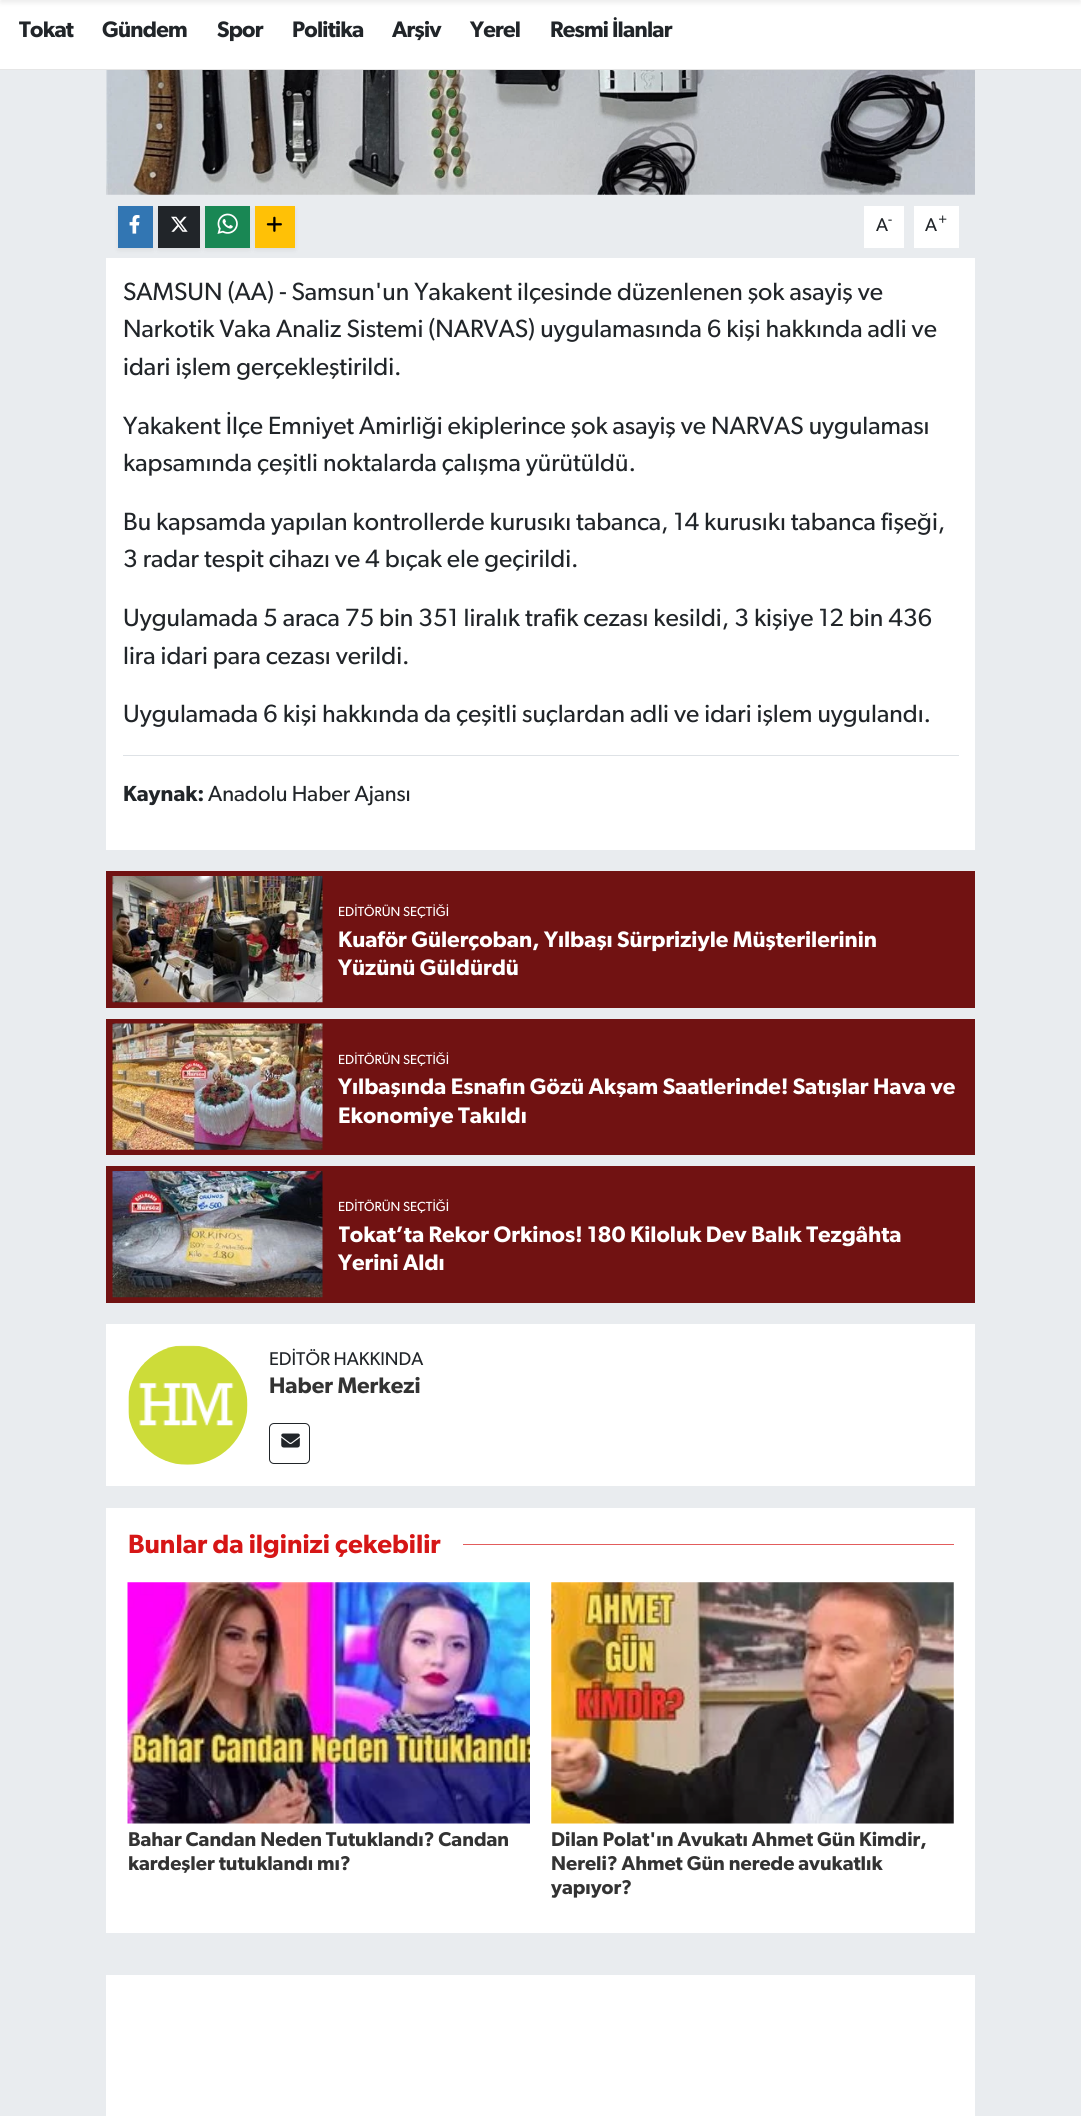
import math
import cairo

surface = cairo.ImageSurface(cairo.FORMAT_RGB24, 1081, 2116)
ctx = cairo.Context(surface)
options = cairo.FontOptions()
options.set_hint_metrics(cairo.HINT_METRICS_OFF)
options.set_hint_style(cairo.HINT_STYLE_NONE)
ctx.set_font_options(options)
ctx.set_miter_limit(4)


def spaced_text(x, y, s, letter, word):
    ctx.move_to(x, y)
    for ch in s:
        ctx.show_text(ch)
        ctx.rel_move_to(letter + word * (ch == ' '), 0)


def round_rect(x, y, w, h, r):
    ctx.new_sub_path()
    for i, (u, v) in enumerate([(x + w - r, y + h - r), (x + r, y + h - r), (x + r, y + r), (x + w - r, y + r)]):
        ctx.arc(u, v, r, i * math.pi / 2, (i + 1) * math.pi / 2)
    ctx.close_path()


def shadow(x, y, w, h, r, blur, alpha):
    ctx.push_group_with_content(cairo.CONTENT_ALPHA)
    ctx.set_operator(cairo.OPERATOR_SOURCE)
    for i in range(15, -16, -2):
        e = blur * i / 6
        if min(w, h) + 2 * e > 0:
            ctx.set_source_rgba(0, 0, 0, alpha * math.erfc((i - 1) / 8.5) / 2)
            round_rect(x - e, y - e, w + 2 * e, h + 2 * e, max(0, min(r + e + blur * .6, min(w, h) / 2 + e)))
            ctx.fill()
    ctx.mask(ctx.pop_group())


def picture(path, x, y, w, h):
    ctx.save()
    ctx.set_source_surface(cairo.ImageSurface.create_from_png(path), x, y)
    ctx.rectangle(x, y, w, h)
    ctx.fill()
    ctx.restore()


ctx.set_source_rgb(0.914, 0.925, 0.937)
ctx.paint()
ctx.set_source_rgb(1, 1, 1)
ctx.rectangle(0, 0, 1081, 69)
ctx.fill()
ctx.set_source_rgb(0, 0, 0)
shadow(0, -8, 1081, 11, 0, 2.5, 0.07)
ctx.set_source_rgb(0.902, 0.902, 0.902)
ctx.rectangle(0, 69, 1081, 1)
ctx.fill()
ctx.select_font_face("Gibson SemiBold")
ctx.set_font_size(22.5)
ctx.set_source_rgb(0.129, 0.145, 0.161)
spaced_text(19, 37, "Tokat", -0.75, 0)
spaced_text(102, 37, "Gündem", -0.75, 0)
spaced_text(217, 37, "Spor", -0.75, 0)
spaced_text(292, 37, "Politika", -0.75, 0)
spaced_text(392, 37, "Arşiv", -0.75, 0)
spaced_text(470, 37, "Yerel", -0.75, 0)
spaced_text(550, 37, "Resmi İlanlar", -0.75, 0)
picture("img1.png", 106, 70, 869, 125)
ctx.set_source_rgb(0, 0, 0)
shadow(118, 209, 35, 41, 0, 2.5, 0.07)
ctx.set_source_rgb(0.196, 0.463, 0.702)
ctx.rectangle(118, 206, 35, 42)
ctx.fill()
picture("img2.png", 129, 215, 11, 19)
ctx.set_source_rgb(0, 0, 0)
shadow(158, 209, 42, 41, 0, 2.5, 0.07)
ctx.set_source_rgb(0.129, 0.145, 0.161)
ctx.rectangle(158, 206, 42, 42)
ctx.fill()
picture("img3.png", 171, 216, 17, 16)
ctx.set_source_rgb(0, 0, 0)
shadow(205, 209, 45, 41, 0, 2.5, 0.07)
ctx.set_source_rgb(0.098, 0.529, 0.329)
ctx.rectangle(205, 206, 45, 42)
ctx.fill()
picture("img4.png", 217, 213, 21, 21)
ctx.set_source_rgb(0, 0, 0)
shadow(255, 209, 40, 41, 0, 2.5, 0.07)
ctx.set_source_rgb(1, 0.757, 0.027)
ctx.rectangle(255, 206, 40, 42)
ctx.fill()
picture("img5.png", 266, 216, 16, 16)
ctx.set_source_rgb(1, 1, 1)
ctx.rectangle(864, 206, 40, 42)
ctx.fill()
ctx.select_font_face("Gibson")
ctx.set_font_size(18.5)
ctx.set_source_rgb(0.129, 0.145, 0.161)
ctx.move_to(876, 231)
ctx.show_text("A")
ctx.set_font_size(14)
ctx.move_to(888, 224)
ctx.show_text("-")
ctx.set_source_rgb(1, 1, 1)
ctx.rectangle(914, 206, 45, 42)
ctx.fill()
ctx.set_font_size(18.5)
ctx.set_source_rgb(0.129, 0.145, 0.161)
ctx.move_to(925, 231)
ctx.show_text("A")
ctx.set_font_size(14)
ctx.move_to(938, 224)
ctx.show_text("+")
ctx.set_source_rgb(1, 1, 1)
ctx.rectangle(106, 258, 869, 592)
ctx.fill()
ctx.set_font_size(25)
ctx.set_source_rgb(0.129, 0.145, 0.161)
ctx.move_to(123, 300)
ctx.show_text("SAMSUN (AA) - Samsun'un Yakakent ilçesinde düzenlenen şok asayiş ve")
ctx.move_to(123, 337)
ctx.show_text("Narkotik Vaka Analiz Sistemi (NARVAS) uygulamasında 6 kişi hakkında adli ve")
ctx.move_to(123, 375)
ctx.show_text("idari işlem gerçekleştirildi.")
ctx.move_to(123, 434)
ctx.show_text("Yakakent İlçe Emniyet Amirliği ekiplerince şok asayiş ve NARVAS uygulaması")
ctx.move_to(123, 471)
ctx.show_text("kapsamında çeşitli noktalarda çalışma yürütüldü.")
ctx.move_to(123, 530)
ctx.show_text("Bu kapsamda yapılan kontrollerde kurusıkı tabanca, 14 kurusıkı tabanca fişeği,")
ctx.move_to(123, 567)
ctx.show_text("3 radar tespit cihazı ve 4 bıçak ele geçirildi.")
ctx.move_to(123, 626)
ctx.show_text("Uygulamada 5 araca 75 bin 351 liralık trafik cezası kesildi, 3 kişiye 12 bin 436")
ctx.move_to(123, 664)
ctx.show_text("lira idari para cezası verildi.")
ctx.move_to(123, 722)
ctx.show_text("Uygulamada 6 kişi hakkında da çeşitli suçlardan adli ve idari işlem uygulandı.")
ctx.set_source_rgb(0.871, 0.886, 0.902)
ctx.rectangle(123, 755, 836, 1)
ctx.fill()
ctx.select_font_face("Gibson SemiBold")
ctx.set_font_size(21.9)
ctx.set_source_rgb(0.129, 0.145, 0.161)
ctx.move_to(123, 801)
ctx.show_text("Kaynak:")
ctx.select_font_face("Gibson")
ctx.move_to(208, 801)
ctx.show_text("Anadolu Haber Ajansı")
ctx.set_source_rgb(0.443, 0.071, 0.071)
ctx.rectangle(106, 871, 869, 137)
ctx.fill()
picture("img6.png", 112, 876, 211, 127)
ctx.set_font_size(13.25)
ctx.set_source_rgb(1, 1, 1)
ctx.move_to(338, 916)
ctx.show_text("EDİTÖRÜN SEÇTİĞİ")
ctx.select_font_face("Gibson SemiBold")
ctx.set_font_size(22.5)
ctx.move_to(338, 947)
ctx.show_text("Kuaför Gülerçoban, Yılbaşı Sürpriziyle Müşterilerinin")
ctx.move_to(338, 975)
ctx.show_text("Yüzünü Güldürdü")
ctx.set_source_rgb(0.443, 0.071, 0.071)
ctx.rectangle(106, 1019, 869, 136)
ctx.fill()
picture("img7.png", 112, 1023, 211, 127)
ctx.select_font_face("Gibson")
ctx.set_font_size(13.25)
ctx.set_source_rgb(1, 1, 1)
ctx.move_to(338, 1064)
ctx.show_text("EDİTÖRÜN SEÇTİĞİ")
ctx.select_font_face("Gibson SemiBold")
ctx.set_font_size(22.5)
ctx.move_to(338, 1094)
ctx.show_text("Yılbaşında Esnafın Gözü Akşam Saatlerinde! Satışlar Hava ve")
ctx.move_to(338, 1123)
ctx.show_text("Ekonomiye Takıldı")
ctx.set_source_rgb(0.443, 0.071, 0.071)
ctx.rectangle(106, 1166, 869, 137)
ctx.fill()
picture("img8.png", 112, 1171, 211, 127)
ctx.select_font_face("Gibson")
ctx.set_font_size(13.25)
ctx.set_source_rgb(1, 1, 1)
ctx.move_to(338, 1211)
ctx.show_text("EDİTÖRÜN SEÇTİĞİ")
ctx.save()
ctx.rectangle(339, 1223, 620, 56)
ctx.clip()
ctx.select_font_face("Gibson SemiBold")
ctx.set_font_size(22.5)
ctx.move_to(338, 1242)
ctx.show_text("Tokat’ta Rekor Orkinos! 180 Kiloluk Dev Balık Tezgâhta")
ctx.restore()
ctx.select_font_face("Gibson SemiBold")
ctx.set_font_size(22.5)
ctx.move_to(338, 1270)
ctx.show_text("Yerini Aldı")
ctx.rectangle(106, 1324, 869, 162)
ctx.fill()
picture("img9.png", 128, 1345, 120, 120)
ctx.select_font_face("Gibson")
ctx.set_font_size(18.5)
ctx.set_source_rgb(0.129, 0.145, 0.161)
ctx.move_to(269, 1365)
ctx.show_text("EDİTÖR HAKKINDA")
ctx.select_font_face("Gibson SemiBold")
ctx.set_font_size(22.5)
ctx.set_source_rgb(0.2, 0.2, 0.2)
ctx.move_to(269, 1393)
ctx.show_text("Haber Merkezi")
round_rect(269.5, 1423.5, 40, 40, 4.5)
ctx.set_source_rgb(0.129, 0.145, 0.161)
ctx.set_line_width(1)
ctx.stroke()
picture("img10.png", 281, 1433, 19, 15)
ctx.set_source_rgb(1, 1, 1)
ctx.rectangle(106, 1508, 869, 425)
ctx.fill()
ctx.set_font_size(26.5)
ctx.set_source_rgb(0.839, 0.086, 0.086)
ctx.move_to(128, 1553)
ctx.show_text("Bunlar da ilginizi çekebilir")
ctx.set_source_rgb(0.886, 0.361, 0.361)
ctx.rectangle(463, 1544, 491, 1)
ctx.fill()
picture("img11.png", 127, 1582, 403, 242)
ctx.set_font_size(20)
ctx.set_source_rgb(0.2, 0.2, 0.2)
ctx.move_to(128, 1846)
ctx.show_text("Bahar Candan Neden Tutuklandı? Candan")
ctx.move_to(128, 1870)
ctx.show_text("kardeşler tutuklandı mı?")
picture("img12.png", 551, 1582, 403, 242)
ctx.move_to(551, 1846)
ctx.show_text("Dilan Polat'ın Avukatı Ahmet Gün Kimdir,")
ctx.move_to(551, 1870)
ctx.show_text("Nereli? Ahmet Gün nerede avukatlık")
ctx.move_to(551, 1894)
ctx.show_text("yapıyor?")
ctx.set_source_rgb(1, 1, 1)
ctx.rectangle(106, 1975, 869, 141)
ctx.fill()
surface.write_to_png("page.png")
